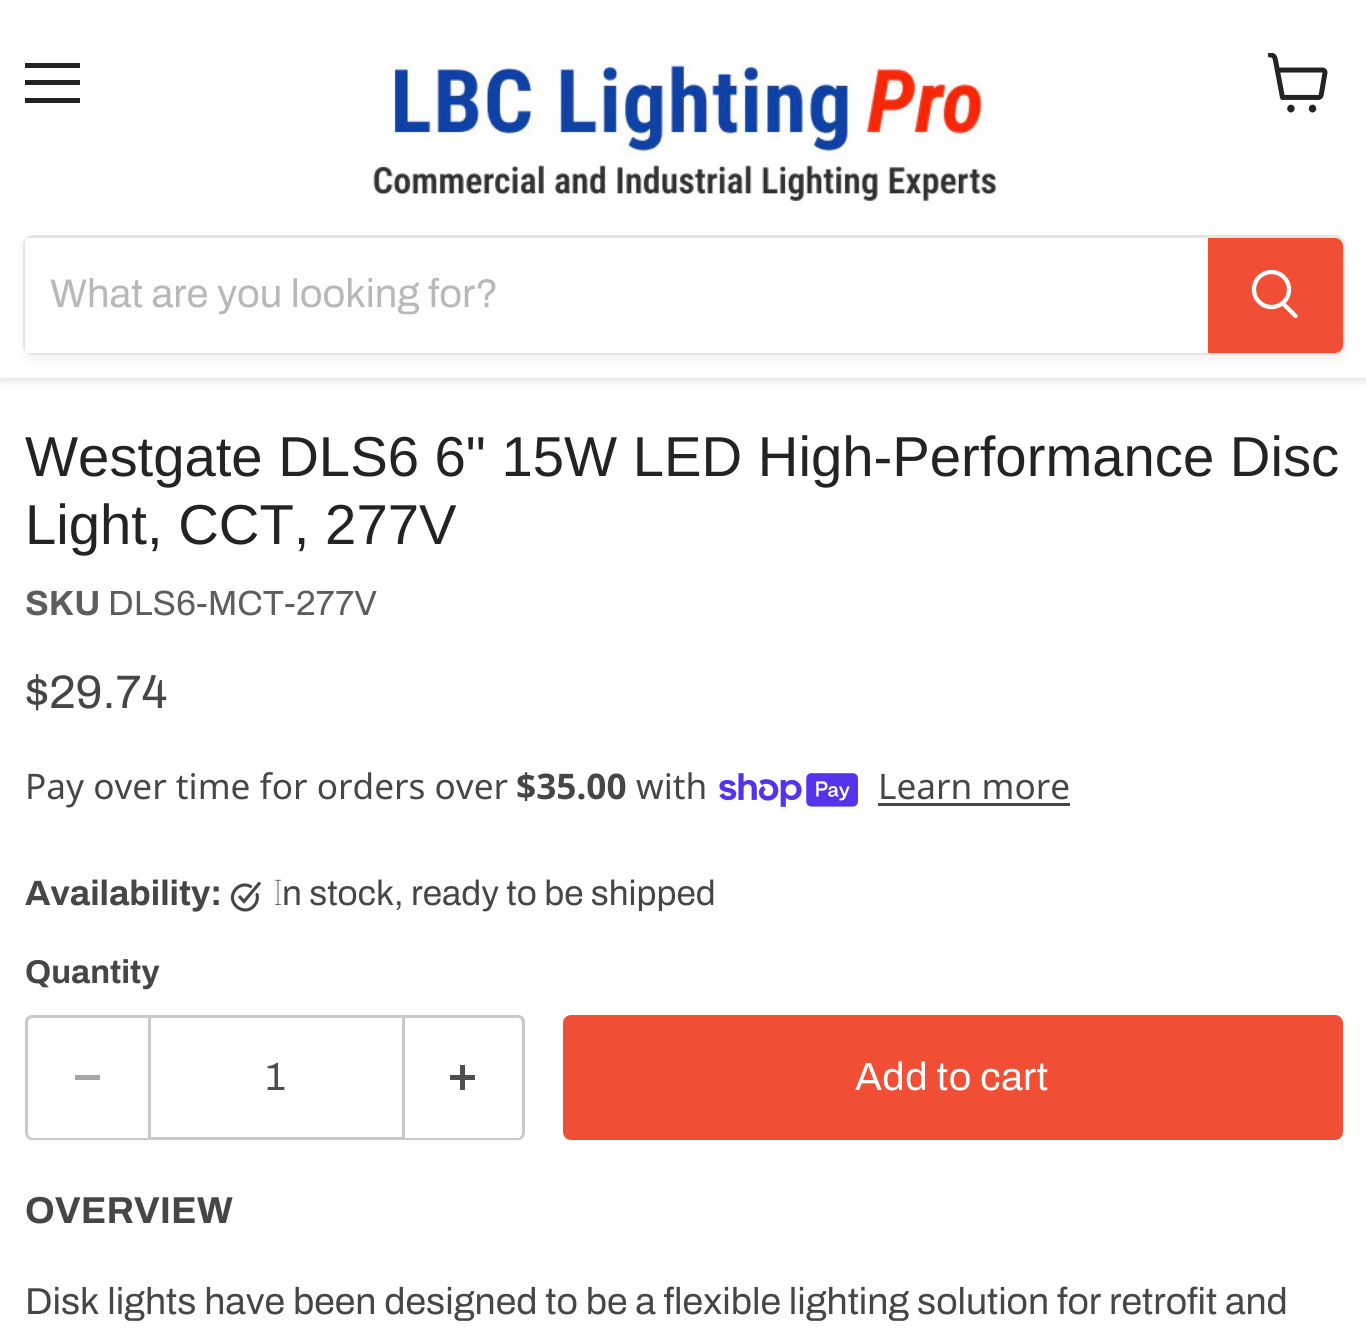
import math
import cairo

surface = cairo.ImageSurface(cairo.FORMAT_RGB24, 1366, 1338)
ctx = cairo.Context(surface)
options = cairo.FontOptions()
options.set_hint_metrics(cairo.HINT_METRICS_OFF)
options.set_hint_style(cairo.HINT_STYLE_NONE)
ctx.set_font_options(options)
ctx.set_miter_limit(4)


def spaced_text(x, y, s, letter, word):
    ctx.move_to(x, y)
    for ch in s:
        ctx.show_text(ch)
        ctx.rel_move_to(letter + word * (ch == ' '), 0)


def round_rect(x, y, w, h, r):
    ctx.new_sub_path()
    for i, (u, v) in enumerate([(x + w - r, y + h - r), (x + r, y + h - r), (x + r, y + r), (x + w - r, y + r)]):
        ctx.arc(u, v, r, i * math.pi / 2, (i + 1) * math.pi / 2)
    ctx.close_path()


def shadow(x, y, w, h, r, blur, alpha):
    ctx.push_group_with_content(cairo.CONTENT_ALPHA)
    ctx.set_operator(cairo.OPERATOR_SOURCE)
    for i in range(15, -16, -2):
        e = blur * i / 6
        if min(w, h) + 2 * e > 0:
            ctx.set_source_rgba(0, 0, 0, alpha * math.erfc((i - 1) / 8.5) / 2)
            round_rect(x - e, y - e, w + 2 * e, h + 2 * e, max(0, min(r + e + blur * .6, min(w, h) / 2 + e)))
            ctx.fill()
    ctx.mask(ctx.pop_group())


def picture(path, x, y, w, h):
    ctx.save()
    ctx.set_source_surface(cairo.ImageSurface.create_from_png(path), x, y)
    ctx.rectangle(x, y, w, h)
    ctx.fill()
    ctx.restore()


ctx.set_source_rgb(1, 1, 1)
ctx.paint()
ctx.set_source_rgb(0.502, 0.502, 0.502)
shadow(0, 3, 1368, 377, 0, 5, 0.25)
ctx.set_source_rgb(1, 1, 1)
ctx.rectangle(0, 0, 1366, 378)
ctx.fill()
ctx.set_source_rgb(0.133, 0.137, 0.137)
ctx.rectangle(25, 63, 55, 5)
ctx.fill()
ctx.rectangle(25, 80, 55, 5)
ctx.fill()
ctx.rectangle(25, 98, 55, 5)
ctx.fill()
picture("img1.png", 1268, 53, 60, 60)
picture("img2.png", 373, 64, 625, 140)
ctx.save()
ctx.set_fill_rule(cairo.FILL_RULE_EVEN_ODD)
ctx.new_path()
ctx.move_to(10, 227)
ctx.line_to(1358, 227)
ctx.line_to(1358, 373)
ctx.line_to(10, 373)
ctx.close_path()
ctx.move_to(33, 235)
ctx.line_to(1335, 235)
ctx.curve_to(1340.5, 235, 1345, 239.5, 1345, 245)
ctx.line_to(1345, 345)
ctx.curve_to(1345, 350.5, 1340.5, 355, 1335, 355)
ctx.line_to(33, 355)
ctx.curve_to(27.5, 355, 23, 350.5, 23, 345)
ctx.line_to(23, 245)
ctx.curve_to(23, 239.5, 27.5, 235, 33, 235)
ctx.close_path()
ctx.clip()
ctx.set_source_rgb(0.502, 0.502, 0.502)
shadow(23, 240, 1322, 120, 10, 4, 0.11)
ctx.restore()
round_rect(24.5, 236.5, 1319, 117, 8.5)
ctx.set_source_rgba(0.502, 0.502, 0.502, 0.2)
ctx.set_line_width(3)
ctx.stroke()
ctx.set_source_rgb(1, 1, 1)
ctx.rectangle(25, 238, 1183, 115)
ctx.fill()
ctx.select_font_face("Archivo")
ctx.set_font_size(40)
ctx.set_source_rgb(0.722, 0.722, 0.722)
ctx.move_to(50, 307)
ctx.show_text("What are you looking for?")
ctx.set_source_rgb(0.941, 0.31, 0.212)
ctx.new_path()
ctx.move_to(1209.5, 239.5)
ctx.line_to(1335, 239.5)
ctx.curve_to(1338.5, 239.5, 1341.5, 242.5, 1341.5, 246)
ctx.line_to(1341.5, 345)
ctx.curve_to(1341.5, 348.5, 1338.5, 351.5, 1335, 351.5)
ctx.line_to(1209.5, 351.5)
ctx.close_path()
ctx.fill_preserve()
ctx.stroke()
ctx.new_path()
ctx.move_to(1295.5, 316)
ctx.line_to(1283.5, 304)
ctx.set_source_rgb(1, 1, 1)
ctx.set_line_width(4.3)
ctx.set_line_cap(cairo.LINE_CAP_ROUND)
ctx.stroke()
ctx.save()
ctx.rectangle(1250, 270, 50, 53)
ctx.clip()
ctx.arc(1271.5, 289.5, 17.5, 0, 2 * math.pi)
ctx.set_line_cap(cairo.LINE_CAP_BUTT)
ctx.stroke()
ctx.restore()
ctx.select_font_face("Arimo")
ctx.set_font_size(56.25)
ctx.set_source_rgb(0.133, 0.137, 0.137)
ctx.move_to(25, 476)
ctx.show_text("Westgate DLS6 6\" 15W LED High-Performance Disc")
ctx.move_to(25, 544)
ctx.show_text("Light, CCT, 277V")
ctx.select_font_face("Archivo", cairo.FONT_SLANT_NORMAL, cairo.FONT_WEIGHT_BOLD)
ctx.set_font_size(35)
ctx.set_source_rgb(0.369, 0.365, 0.365)
ctx.move_to(25, 615)
ctx.show_text("SKU")
ctx.select_font_face("Archivo")
ctx.move_to(108, 615)
ctx.show_text("DLS6-MCT-277V")
ctx.set_font_size(47)
ctx.set_source_rgb(0.275, 0.275, 0.275)
ctx.move_to(25, 708)
ctx.show_text("$29.74")
ctx.select_font_face("Noto Sans")
ctx.set_font_size(35.2)
ctx.move_to(25, 799)
ctx.show_text("Pay over time for orders over")
ctx.select_font_face("Noto Sans", cairo.FONT_SLANT_NORMAL, cairo.FONT_WEIGHT_BOLD)
ctx.move_to(516, 799)
ctx.show_text("$35.00")
ctx.select_font_face("Noto Sans")
ctx.move_to(636, 799)
ctx.show_text("with")
picture("img3.png", 719, 773, 139, 34)
ctx.move_to(878, 799)
ctx.show_text("Learn more")
ctx.rectangle(878, 803, 192, 3)
ctx.fill()
ctx.select_font_face("Archivo", cairo.FONT_SLANT_NORMAL, cairo.FONT_WEIGHT_BOLD)
ctx.move_to(25, 905)
ctx.show_text("Availability:")
ctx.new_path()
ctx.move_to(239, 896)
ctx.line_to(244, 901.5)
ctx.line_to(260, 882.5)
ctx.set_source_rgb(0.271, 0.275, 0.282)
ctx.set_line_width(3.1)
ctx.set_line_cap(cairo.LINE_CAP_BUTT)
ctx.stroke()
ctx.new_path()
ctx.move_to(257, 894.5)
ctx.curve_to(258, 898, 257, 902, 255, 904.5)
ctx.curve_to(245.5, 918.5, 224.5, 903, 235.5, 889.5)
ctx.curve_to(239, 885, 245.5, 883.5, 250.5, 886.5)
ctx.set_line_cap(cairo.LINE_CAP_ROUND)
ctx.set_line_join(cairo.LINE_JOIN_ROUND)
ctx.stroke()
ctx.select_font_face("Noto Sans Thin")
ctx.set_source_rgb(0.275, 0.275, 0.275)
ctx.move_to(273, 905)
ctx.show_text("I")
ctx.select_font_face("Archivo")
ctx.move_to(282, 905)
ctx.show_text("n stock, ready to be shipped")
ctx.select_font_face("Archivo", cairo.FONT_SLANT_NORMAL, cairo.FONT_WEIGHT_BOLD)
ctx.set_font_size(33)
ctx.move_to(25, 983)
ctx.show_text("Quantity")
ctx.set_source_rgb(0.78, 0.788, 0.8)
ctx.set_fill_rule(cairo.FILL_RULE_EVEN_ODD)
ctx.new_path()
ctx.move_to(32, 1015)
ctx.line_to(148, 1015)
ctx.line_to(148, 1140)
ctx.line_to(32, 1140)
ctx.curve_to(28, 1140, 25, 1137, 25, 1132)
ctx.line_to(25, 1022)
ctx.curve_to(25, 1018, 28, 1015, 32, 1015)
ctx.close_path()
ctx.move_to(32, 1018)
ctx.line_to(148, 1018)
ctx.line_to(148, 1138)
ctx.line_to(32, 1138)
ctx.curve_to(30, 1138, 28, 1135, 28, 1132)
ctx.line_to(28, 1022)
ctx.curve_to(28, 1020, 30, 1018, 32, 1018)
ctx.close_path()
ctx.fill()
ctx.set_source_rgb(0.651, 0.651, 0.651)
ctx.rectangle(75, 1075, 25, 5)
ctx.fill()
ctx.rectangle(149.5, 1016.5, 254, 122)
ctx.set_source_rgb(0.78, 0.788, 0.8)
ctx.set_line_width(3)
ctx.set_line_cap(cairo.LINE_CAP_BUTT)
ctx.set_line_join(cairo.LINE_JOIN_MITER)
ctx.stroke()
ctx.select_font_face("Archivo")
ctx.set_font_size(39.5)
ctx.set_source_rgb(0.302, 0.302, 0.302)
ctx.move_to(265, 1090)
ctx.show_text("1")
ctx.set_source_rgb(0.78, 0.788, 0.8)
ctx.new_path()
ctx.move_to(405, 1015)
ctx.line_to(518, 1015)
ctx.curve_to(522, 1015, 525, 1018, 525, 1022)
ctx.line_to(525, 1132)
ctx.curve_to(525, 1137, 522, 1140, 518, 1140)
ctx.line_to(405, 1140)
ctx.close_path()
ctx.move_to(405, 1018)
ctx.line_to(518, 1018)
ctx.curve_to(520, 1018, 522, 1020, 522, 1022)
ctx.line_to(522, 1132)
ctx.curve_to(522, 1135, 520, 1138, 518, 1138)
ctx.line_to(405, 1138)
ctx.close_path()
ctx.fill()
picture("img4.png", 450, 1065, 25, 25)
ctx.set_source_rgb(0.941, 0.31, 0.212)
round_rect(563, 1015, 780, 125, 8)
ctx.fill()
ctx.set_source_rgb(1, 1, 1)
spaced_text(855, 1090, "Add to cart", 0.4, 0)
ctx.select_font_face("Archivo", cairo.FONT_SLANT_NORMAL, cairo.FONT_WEIGHT_BOLD)
ctx.set_font_size(37.5)
ctx.set_source_rgb(0.275, 0.275, 0.275)
ctx.move_to(25, 1223)
ctx.show_text("OVERVIEW")
ctx.select_font_face("Archivo")
ctx.move_to(25, 1314)
ctx.show_text("Disk lights have been designed to be a flexible lighting solution for retrofit and")
surface.write_to_png("page.png")
